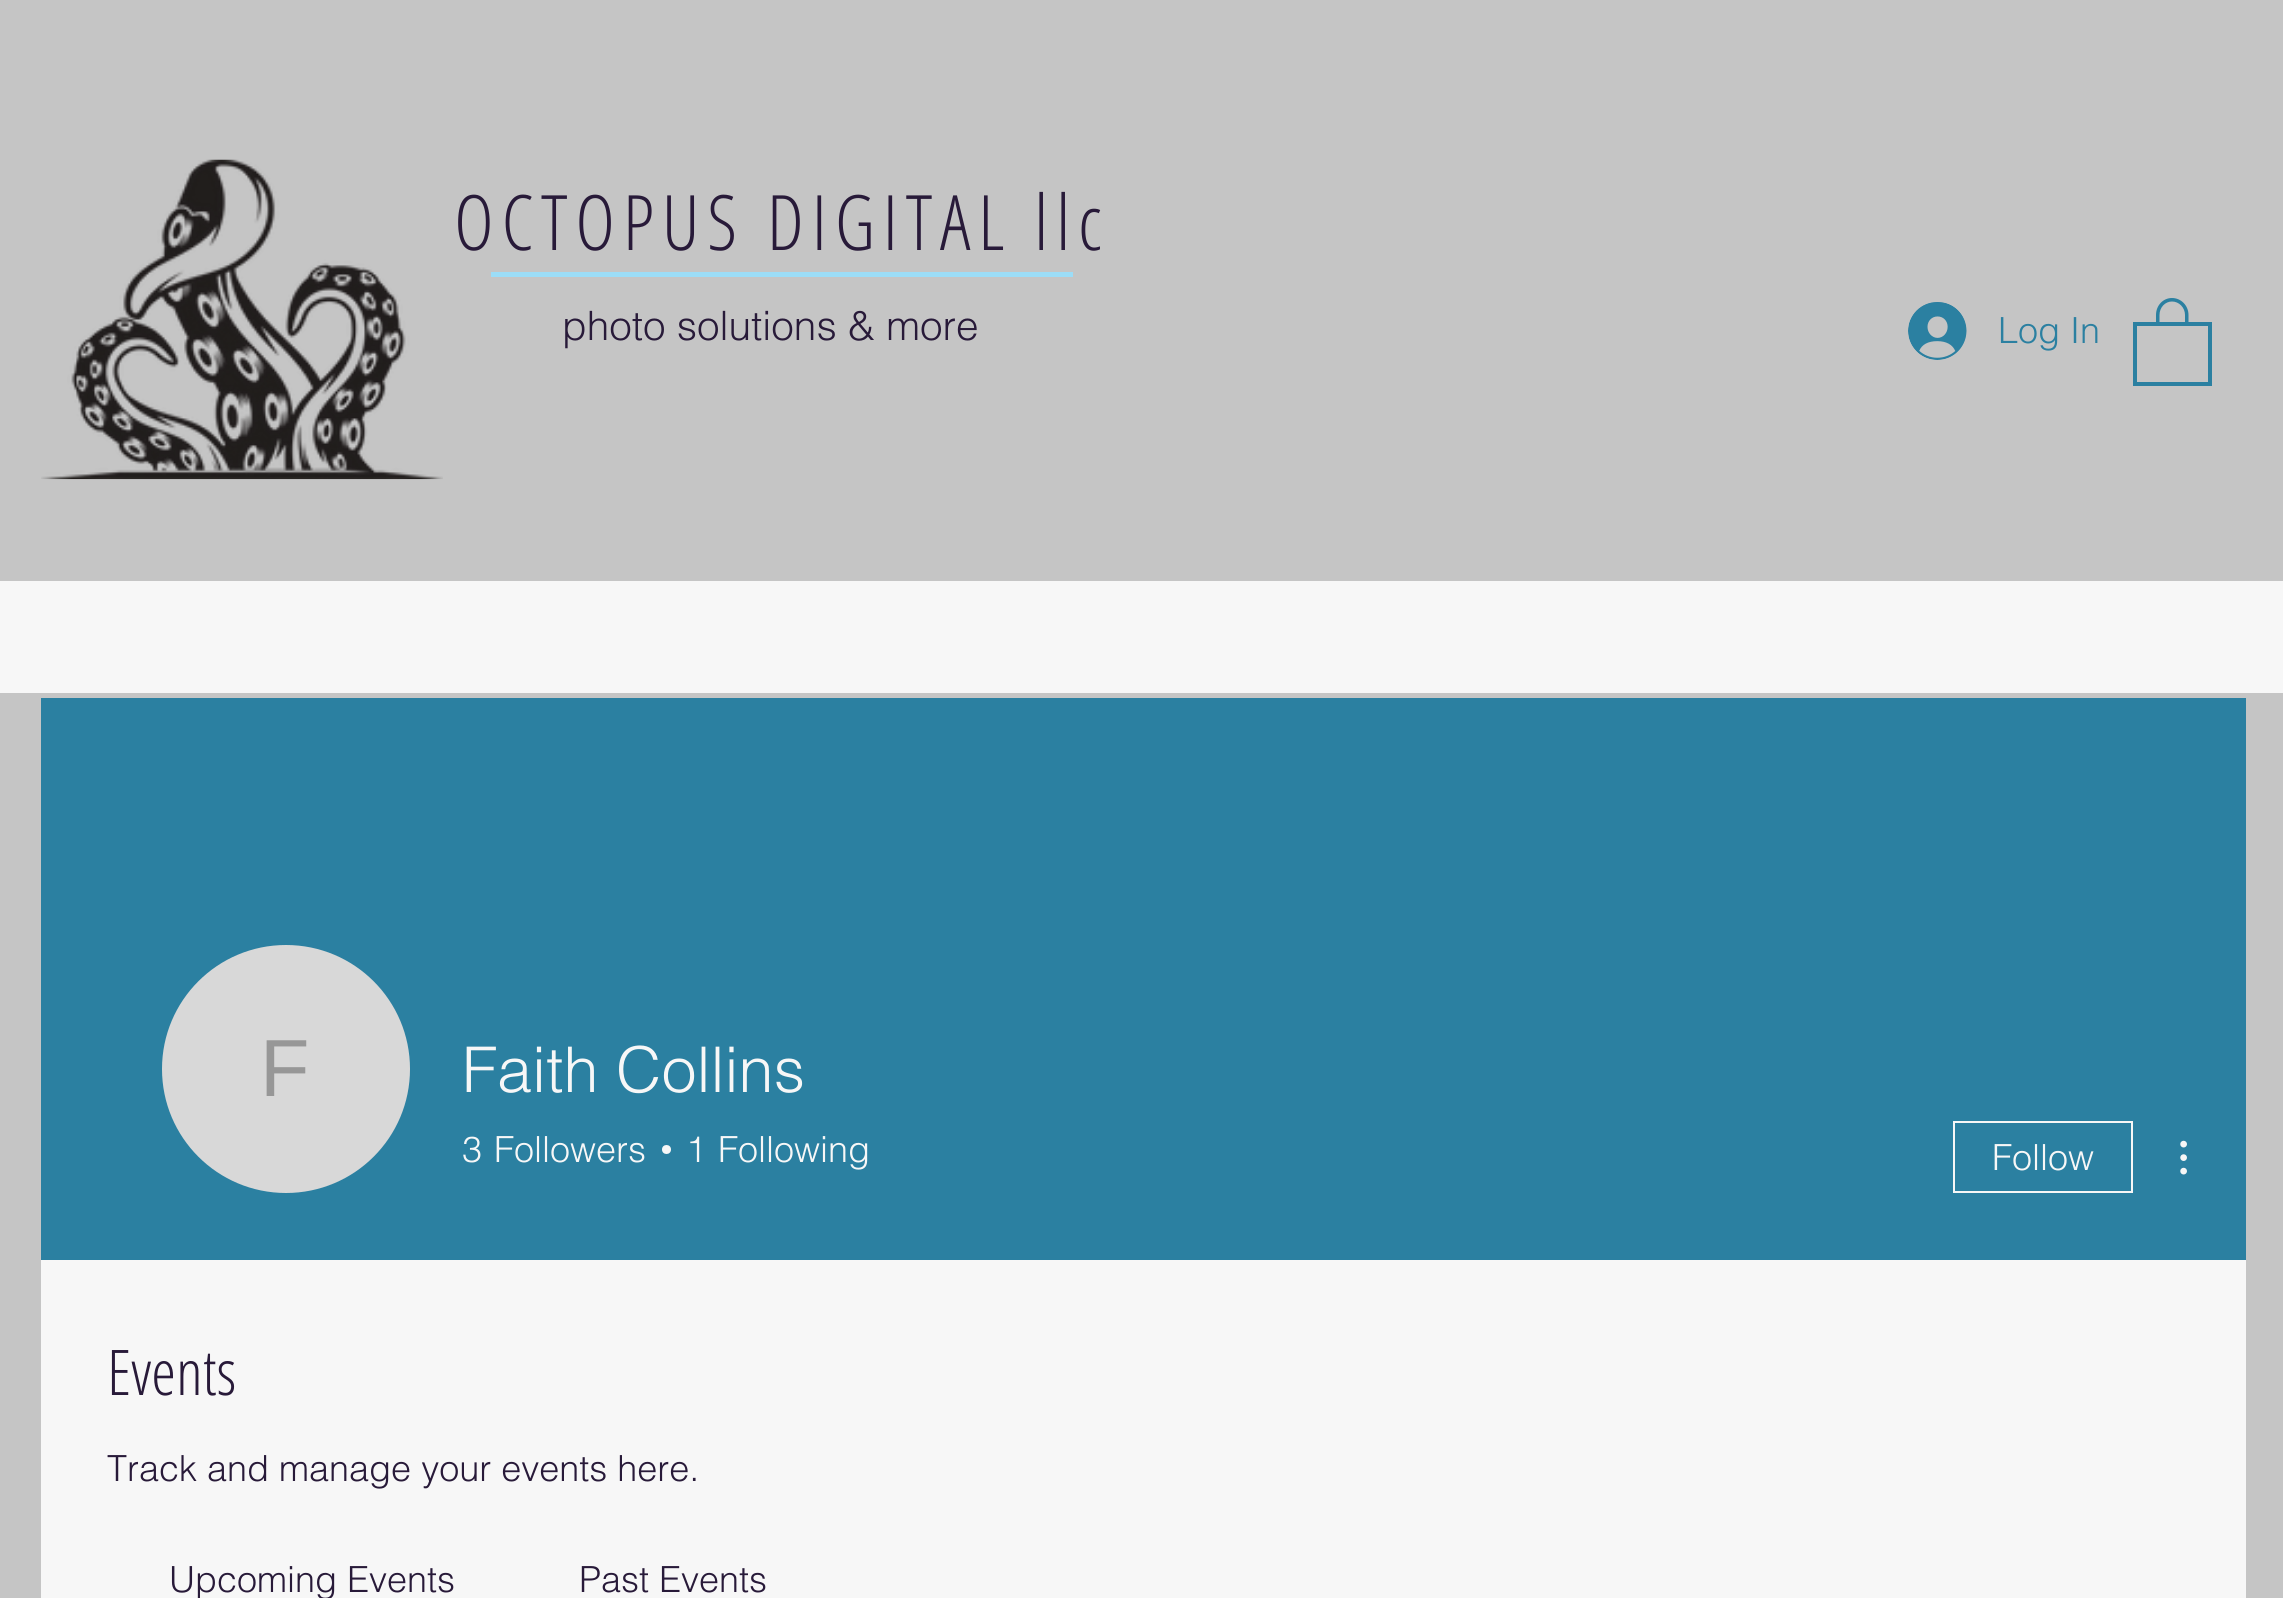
import math
import cairo

surface = cairo.ImageSurface(cairo.FORMAT_RGB24, 2283, 1598)
ctx = cairo.Context(surface)
options = cairo.FontOptions()
options.set_hint_metrics(cairo.HINT_METRICS_OFF)
options.set_hint_style(cairo.HINT_STYLE_NONE)
ctx.set_font_options(options)
ctx.set_miter_limit(4)


def spaced_text(x, y, s, letter, word):
    ctx.move_to(x, y)
    for ch in s:
        ctx.show_text(ch)
        ctx.rel_move_to(letter + word * (ch == ' '), 0)


def picture(path, x, y, w, h):
    ctx.save()
    ctx.set_source_surface(cairo.ImageSurface.create_from_png(path), x, y)
    ctx.rectangle(x, y, w, h)
    ctx.fill()
    ctx.restore()


ctx.set_source_rgb(0.773, 0.773, 0.773)
ctx.paint()
picture("img1.png", 41, 159, 402, 321)
ctx.select_font_face("Open Sans Condensed Light")
ctx.set_font_size(76.5)
ctx.set_source_rgb(0.157, 0.102, 0.224)
spaced_text(454, 250, "OCTOPUS DIGITAL llc", 7.6, 0)
ctx.set_source_rgb(0.612, 0.867, 0.965)
ctx.rectangle(491, 272, 582, 5)
ctx.fill()
ctx.select_font_face("helvetica Light")
ctx.set_font_size(40.5)
ctx.set_source_rgb(0.157, 0.102, 0.224)
ctx.move_to(562, 340)
ctx.show_text("photo solutions & more")
picture("img2.png", 1908, 302, 59, 58)
ctx.set_font_size(36)
ctx.set_source_rgb(0.169, 0.502, 0.631)
ctx.move_to(1998, 343)
ctx.show_text("Log In")
ctx.new_path()
ctx.move_to(2172, 298)
ctx.curve_to(2163, 298, 2156, 305.5, 2156, 315)
ctx.line_to(2156, 323.5)
ctx.line_to(2159.5, 323.5)
ctx.line_to(2159.5, 315)
ctx.curve_to(2159.5, 307.5, 2165, 301.5, 2172, 301.5)
ctx.curve_to(2179, 301.5, 2185, 307.5, 2185, 315)
ctx.line_to(2185, 323.5)
ctx.line_to(2188, 323.5)
ctx.line_to(2188, 323)
ctx.line_to(2188.5, 323)
ctx.line_to(2188.5, 315)
ctx.curve_to(2188.5, 305.5, 2181, 298, 2172, 298)
ctx.close_path()
ctx.fill()
ctx.new_path()
ctx.move_to(2208, 326)
ctx.line_to(2208, 382)
ctx.line_to(2137, 382)
ctx.line_to(2137, 326)
ctx.line_to(2208, 326)
ctx.move_to(2212, 322)
ctx.line_to(2133, 322)
ctx.line_to(2133, 386)
ctx.line_to(2212, 386)
ctx.close_path()
ctx.fill()
ctx.set_source_rgb(0.965, 0.965, 0.965)
ctx.rectangle(0, 581, 2283, 112)
ctx.fill()
ctx.set_source_rgb(0.169, 0.502, 0.631)
ctx.rectangle(41, 698, 2205, 562)
ctx.fill()
ctx.set_source_rgb(0.847, 0.847, 0.847)
ctx.arc(286, 1069, 124, 0, 2 * math.pi)
ctx.fill()
ctx.select_font_face("Liberation Sans")
ctx.set_font_size(81)
ctx.set_source_rgb(0.592, 0.592, 0.592)
ctx.move_to(260, 1096)
ctx.show_text("F")
ctx.select_font_face("helvetica Light")
ctx.set_font_size(63)
ctx.set_source_rgb(0.965, 0.965, 0.965)
ctx.move_to(462, 1092)
ctx.show_text("Faith Collins")
ctx.set_font_size(36)
ctx.move_to(462, 1162)
ctx.show_text("3")
ctx.move_to(494, 1162)
ctx.show_text("Followers")
ctx.new_path()
ctx.arc(666.5, 1149.5, 4.5, 0, 2 * math.pi)
ctx.fill()
ctx.move_to(686, 1162)
ctx.show_text("1")
ctx.move_to(718, 1162)
ctx.show_text("Following")
ctx.rectangle(1954, 1122, 178, 70)
ctx.stroke()
ctx.move_to(1992, 1170)
ctx.show_text("Follow")
picture("img3.png", 2180, 1140, 7, 35)
ctx.rectangle(41, 1260, 2205, 338)
ctx.fill()
ctx.select_font_face("Open Sans Condensed Light")
ctx.set_font_size(63)
ctx.set_source_rgb(0.157, 0.102, 0.224)
ctx.move_to(107, 1395)
ctx.show_text("Events")
ctx.select_font_face("helvetica Light")
ctx.set_font_size(36)
ctx.move_to(107, 1481)
ctx.show_text("Track and manage your events here.")
ctx.move_to(169, 1592)
ctx.show_text("Upcoming Events")
ctx.move_to(579, 1592)
ctx.show_text("Past Events")
surface.write_to_png("page.png")
